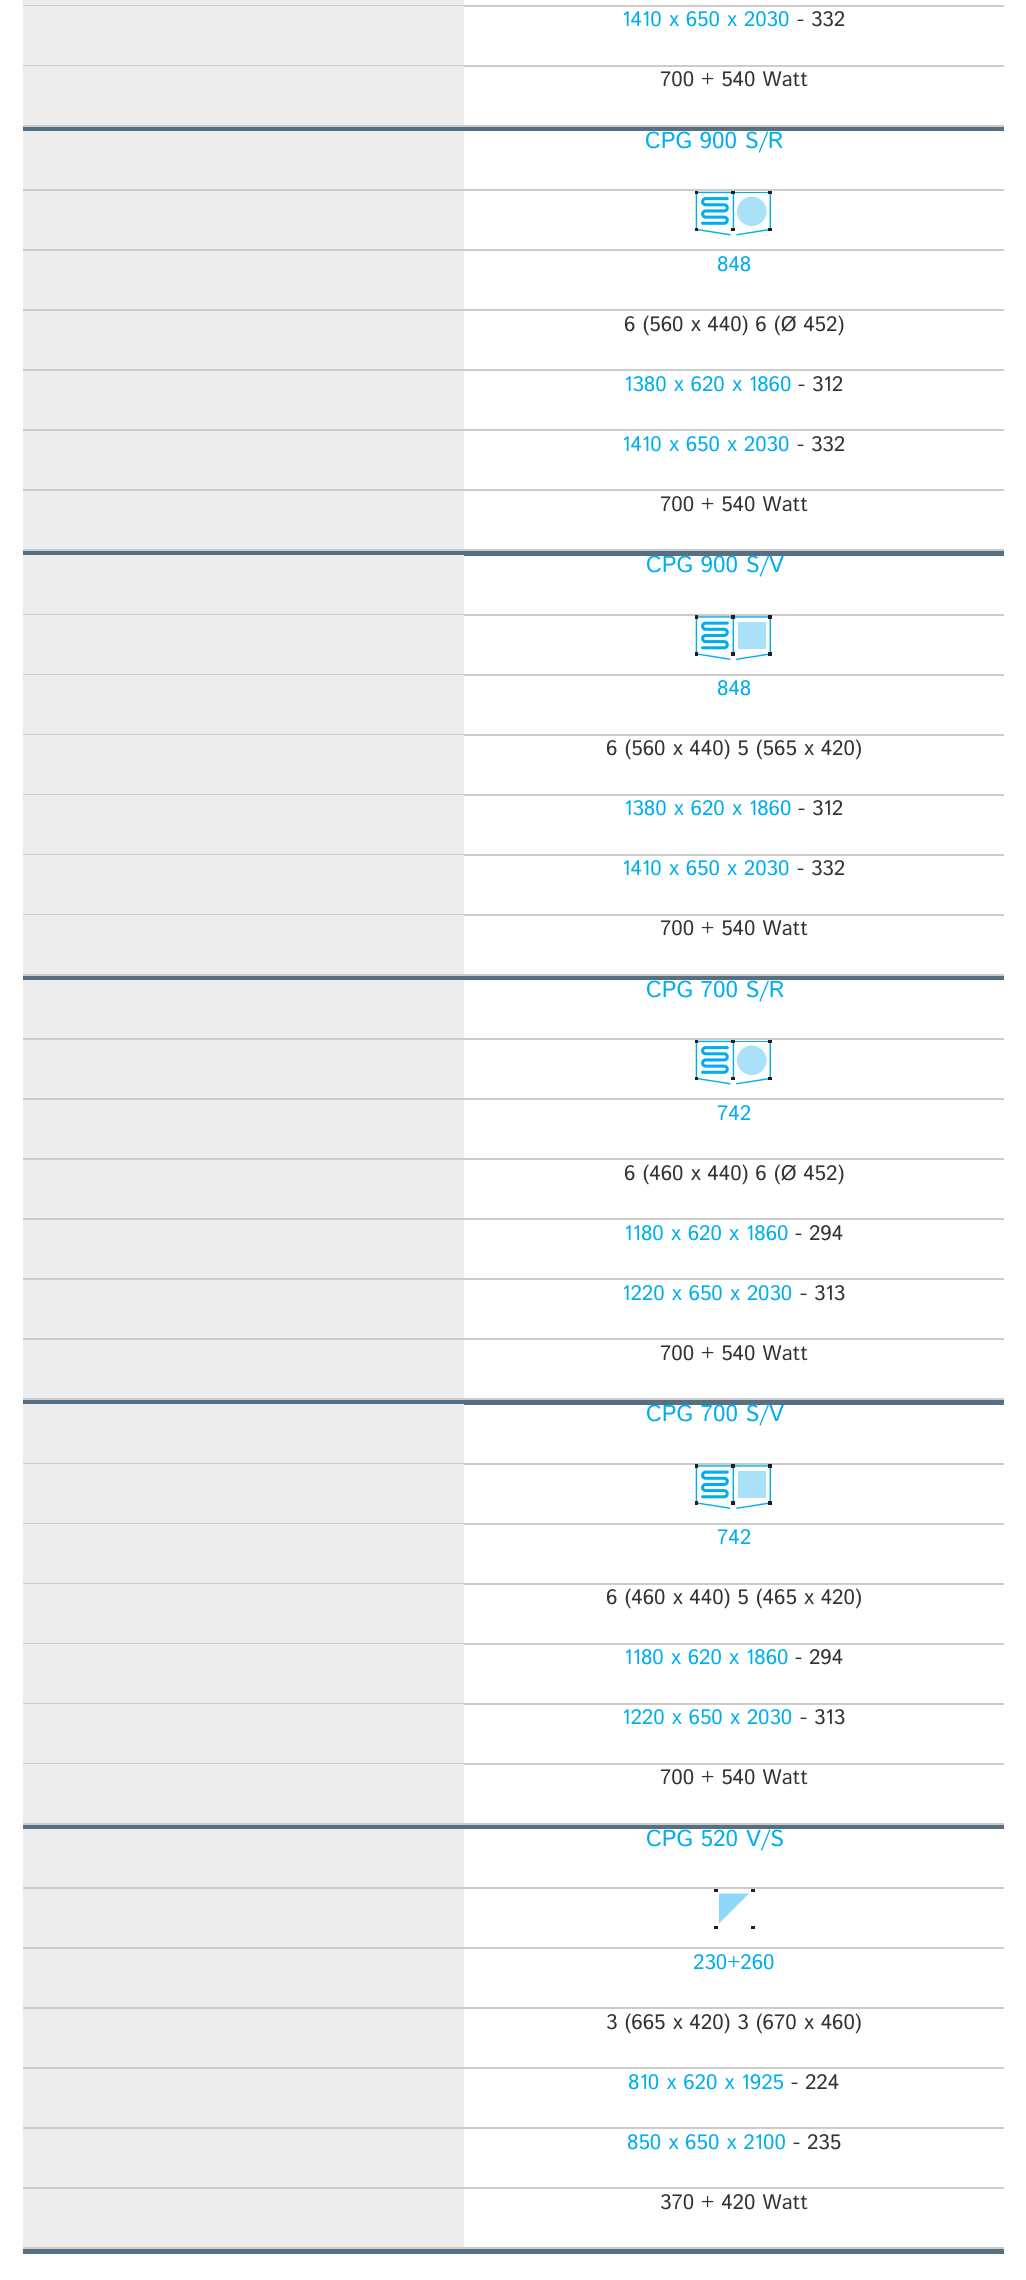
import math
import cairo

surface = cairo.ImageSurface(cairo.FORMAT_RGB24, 1026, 2280)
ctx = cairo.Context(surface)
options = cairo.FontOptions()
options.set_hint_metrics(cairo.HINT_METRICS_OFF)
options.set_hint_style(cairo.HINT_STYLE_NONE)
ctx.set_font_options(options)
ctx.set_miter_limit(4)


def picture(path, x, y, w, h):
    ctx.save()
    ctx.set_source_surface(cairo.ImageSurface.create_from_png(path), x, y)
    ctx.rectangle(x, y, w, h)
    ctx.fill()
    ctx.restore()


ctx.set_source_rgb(1, 1, 1)
ctx.paint()
ctx.set_source_rgb(0.337, 0.439, 0.51)
ctx.rectangle(23, 127, 981, 4)
ctx.fill()
ctx.set_source_rgb(0.8, 0.8, 0.8)
ctx.rectangle(23, 5, 981, 2)
ctx.fill()
ctx.set_source_rgb(0.929, 0.929, 0.929)
ctx.rectangle(23, 0, 441, 5)
ctx.fill()
ctx.set_source_rgb(0.8, 0.8, 0.8)
ctx.rectangle(23, 65, 981, 2)
ctx.fill()
ctx.set_source_rgb(0.929, 0.929, 0.929)
ctx.rectangle(23, 6, 441, 59)
ctx.fill()
ctx.select_font_face("Istok Web")
ctx.set_font_size(21)
ctx.set_source_rgb(0, 0.682, 0.937)
ctx.move_to(622, 26)
ctx.show_text("1410 x 650 x 2030")
ctx.set_source_rgb(0.2, 0.2, 0.2)
ctx.move_to(797, 26)
ctx.show_text("- 332")
ctx.set_source_rgb(0.8, 0.8, 0.8)
ctx.rectangle(23, 125, 981, 2)
ctx.fill()
ctx.set_source_rgb(0.929, 0.929, 0.929)
ctx.rectangle(23, 66, 441, 59)
ctx.fill()
ctx.set_source_rgb(0.2, 0.2, 0.2)
ctx.move_to(660, 86)
ctx.show_text("700 + 540 Watt")
ctx.set_source_rgb(0.337, 0.439, 0.51)
ctx.rectangle(23, 551, 981, 5)
ctx.fill()
ctx.set_source_rgb(0.8, 0.8, 0.8)
ctx.rectangle(23, 189, 981, 2)
ctx.fill()
ctx.set_source_rgb(0.929, 0.929, 0.929)
ctx.rectangle(23, 131, 441, 58)
ctx.fill()
ctx.set_font_size(23)
ctx.set_source_rgb(0, 0.682, 0.937)
ctx.move_to(645, 148)
ctx.show_text("CPG 900 S/R")
ctx.set_source_rgb(0.8, 0.8, 0.8)
ctx.rectangle(23, 249, 981, 2)
ctx.fill()
ctx.set_source_rgb(0.929, 0.929, 0.929)
ctx.rectangle(23, 191, 441, 58)
ctx.fill()
picture("img1.png", 695, 191, 77, 45)
ctx.set_source_rgb(0.8, 0.8, 0.8)
ctx.rectangle(23, 309, 981, 2)
ctx.fill()
ctx.set_source_rgb(0.929, 0.929, 0.929)
ctx.rectangle(23, 251, 441, 58)
ctx.fill()
ctx.set_font_size(21)
ctx.set_source_rgb(0, 0.682, 0.937)
ctx.move_to(717, 271)
ctx.show_text("848")
ctx.set_source_rgb(0.8, 0.8, 0.8)
ctx.rectangle(23, 369, 981, 2)
ctx.fill()
ctx.set_source_rgb(0.929, 0.929, 0.929)
ctx.rectangle(23, 311, 441, 58)
ctx.fill()
ctx.set_source_rgb(0.2, 0.2, 0.2)
ctx.move_to(624, 331)
ctx.show_text("6 (560 x 440) 6 (Ø 452)")
ctx.set_source_rgb(0.8, 0.8, 0.8)
ctx.rectangle(23, 429, 981, 2)
ctx.fill()
ctx.set_source_rgb(0.929, 0.929, 0.929)
ctx.rectangle(23, 371, 441, 58)
ctx.fill()
ctx.set_source_rgb(0, 0.682, 0.937)
ctx.move_to(624, 391)
ctx.show_text("1380 x 620 x 1860")
ctx.set_source_rgb(0.2, 0.2, 0.2)
ctx.move_to(798, 391)
ctx.show_text("- 312")
ctx.set_source_rgb(0.8, 0.8, 0.8)
ctx.rectangle(23, 489, 981, 2)
ctx.fill()
ctx.set_source_rgb(0.929, 0.929, 0.929)
ctx.rectangle(23, 431, 441, 58)
ctx.fill()
ctx.set_source_rgb(0, 0.682, 0.937)
ctx.move_to(622, 451)
ctx.show_text("1410 x 650 x 2030")
ctx.set_source_rgb(0.2, 0.2, 0.2)
ctx.move_to(797, 451)
ctx.show_text("- 332")
ctx.set_source_rgb(0.8, 0.8, 0.8)
ctx.rectangle(23, 549, 981, 2)
ctx.fill()
ctx.set_source_rgb(0.929, 0.929, 0.929)
ctx.rectangle(23, 491, 441, 58)
ctx.fill()
ctx.set_source_rgb(0.2, 0.2, 0.2)
ctx.move_to(660, 511)
ctx.show_text("700 + 540 Watt")
ctx.set_source_rgb(0.337, 0.439, 0.51)
ctx.rectangle(23, 976, 981, 4)
ctx.fill()
ctx.set_source_rgb(0.8, 0.8, 0.8)
ctx.rectangle(23, 614, 981, 2)
ctx.fill()
ctx.set_source_rgb(0.929, 0.929, 0.929)
ctx.rectangle(23, 555, 441, 59)
ctx.fill()
ctx.set_font_size(23)
ctx.set_source_rgb(0, 0.682, 0.937)
ctx.move_to(646, 572)
ctx.show_text("CPG 900 S/V")
ctx.set_source_rgb(0.8, 0.8, 0.8)
ctx.rectangle(23, 674, 981, 2)
ctx.fill()
ctx.set_source_rgb(0.929, 0.929, 0.929)
ctx.rectangle(23, 615, 441, 59)
ctx.fill()
picture("img2.png", 695, 615, 77, 45)
ctx.set_source_rgb(0.8, 0.8, 0.8)
ctx.rectangle(23, 734, 981, 2)
ctx.fill()
ctx.set_source_rgb(0.929, 0.929, 0.929)
ctx.rectangle(23, 675, 441, 59)
ctx.fill()
ctx.set_font_size(21)
ctx.set_source_rgb(0, 0.682, 0.937)
ctx.move_to(717, 695)
ctx.show_text("848")
ctx.set_source_rgb(0.8, 0.8, 0.8)
ctx.rectangle(23, 794, 981, 2)
ctx.fill()
ctx.set_source_rgb(0.929, 0.929, 0.929)
ctx.rectangle(23, 735, 441, 59)
ctx.fill()
ctx.set_source_rgb(0.2, 0.2, 0.2)
ctx.move_to(606, 755)
ctx.show_text("6 (560 x 440) 5 (565 x 420)")
ctx.set_source_rgb(0.8, 0.8, 0.8)
ctx.rectangle(23, 854, 981, 2)
ctx.fill()
ctx.set_source_rgb(0.929, 0.929, 0.929)
ctx.rectangle(23, 795, 441, 59)
ctx.fill()
ctx.set_source_rgb(0, 0.682, 0.937)
ctx.move_to(624, 815)
ctx.show_text("1380 x 620 x 1860")
ctx.set_source_rgb(0.2, 0.2, 0.2)
ctx.move_to(798, 815)
ctx.show_text("- 312")
ctx.set_source_rgb(0.8, 0.8, 0.8)
ctx.rectangle(23, 914, 981, 2)
ctx.fill()
ctx.set_source_rgb(0.929, 0.929, 0.929)
ctx.rectangle(23, 855, 441, 59)
ctx.fill()
ctx.set_source_rgb(0, 0.682, 0.937)
ctx.move_to(622, 875)
ctx.show_text("1410 x 650 x 2030")
ctx.set_source_rgb(0.2, 0.2, 0.2)
ctx.move_to(797, 875)
ctx.show_text("- 332")
ctx.set_source_rgb(0.8, 0.8, 0.8)
ctx.rectangle(23, 974, 981, 2)
ctx.fill()
ctx.set_source_rgb(0.929, 0.929, 0.929)
ctx.rectangle(23, 915, 441, 59)
ctx.fill()
ctx.set_source_rgb(0.2, 0.2, 0.2)
ctx.move_to(660, 935)
ctx.show_text("700 + 540 Watt")
ctx.set_source_rgb(0.337, 0.439, 0.51)
ctx.rectangle(23, 1400, 981, 5)
ctx.fill()
ctx.set_source_rgb(0.8, 0.8, 0.8)
ctx.rectangle(23, 1038, 981, 2)
ctx.fill()
ctx.set_source_rgb(0.929, 0.929, 0.929)
ctx.rectangle(23, 980, 441, 58)
ctx.fill()
ctx.set_font_size(23)
ctx.set_source_rgb(0, 0.682, 0.937)
ctx.move_to(646, 997)
ctx.show_text("CPG 700 S/R")
ctx.set_source_rgb(0.8, 0.8, 0.8)
ctx.rectangle(23, 1098, 981, 2)
ctx.fill()
ctx.set_source_rgb(0.929, 0.929, 0.929)
ctx.rectangle(23, 1040, 441, 58)
ctx.fill()
picture("img1.png", 695, 1040, 77, 45)
ctx.set_source_rgb(0.8, 0.8, 0.8)
ctx.rectangle(23, 1158, 981, 2)
ctx.fill()
ctx.set_source_rgb(0.929, 0.929, 0.929)
ctx.rectangle(23, 1100, 441, 58)
ctx.fill()
ctx.set_font_size(21)
ctx.set_source_rgb(0, 0.682, 0.937)
ctx.move_to(717, 1120)
ctx.show_text("742")
ctx.set_source_rgb(0.8, 0.8, 0.8)
ctx.rectangle(23, 1218, 981, 2)
ctx.fill()
ctx.set_source_rgb(0.929, 0.929, 0.929)
ctx.rectangle(23, 1160, 441, 58)
ctx.fill()
ctx.set_source_rgb(0.2, 0.2, 0.2)
ctx.move_to(624, 1180)
ctx.show_text("6 (460 x 440) 6 (Ø 452)")
ctx.set_source_rgb(0.8, 0.8, 0.8)
ctx.rectangle(23, 1278, 981, 2)
ctx.fill()
ctx.set_source_rgb(0.929, 0.929, 0.929)
ctx.rectangle(23, 1220, 441, 58)
ctx.fill()
ctx.set_source_rgb(0, 0.682, 0.937)
ctx.move_to(624, 1240)
ctx.show_text("1180 x 620 x 1860")
ctx.set_source_rgb(0.2, 0.2, 0.2)
ctx.move_to(795, 1240)
ctx.show_text("- 294")
ctx.set_source_rgb(0.8, 0.8, 0.8)
ctx.rectangle(23, 1338, 981, 2)
ctx.fill()
ctx.set_source_rgb(0.929, 0.929, 0.929)
ctx.rectangle(23, 1280, 441, 58)
ctx.fill()
ctx.set_source_rgb(0, 0.682, 0.937)
ctx.move_to(622, 1300)
ctx.show_text("1220 x 650 x 2030")
ctx.set_source_rgb(0.2, 0.2, 0.2)
ctx.move_to(800, 1300)
ctx.show_text("- 313")
ctx.set_source_rgb(0.8, 0.8, 0.8)
ctx.rectangle(23, 1398, 981, 2)
ctx.fill()
ctx.set_source_rgb(0.929, 0.929, 0.929)
ctx.rectangle(23, 1340, 441, 58)
ctx.fill()
ctx.set_source_rgb(0.2, 0.2, 0.2)
ctx.move_to(660, 1360)
ctx.show_text("700 + 540 Watt")
ctx.set_source_rgb(0.337, 0.439, 0.51)
ctx.rectangle(23, 1825, 981, 4)
ctx.fill()
ctx.set_source_rgb(0.8, 0.8, 0.8)
ctx.rectangle(23, 1463, 981, 2)
ctx.fill()
ctx.set_source_rgb(0.929, 0.929, 0.929)
ctx.rectangle(23, 1404, 441, 59)
ctx.fill()
ctx.set_font_size(23)
ctx.set_source_rgb(0, 0.682, 0.937)
ctx.move_to(646, 1421)
ctx.show_text("CPG 700 S/V")
ctx.set_source_rgb(0.8, 0.8, 0.8)
ctx.rectangle(23, 1523, 981, 2)
ctx.fill()
ctx.set_source_rgb(0.929, 0.929, 0.929)
ctx.rectangle(23, 1464, 441, 59)
ctx.fill()
picture("img2.png", 695, 1464, 77, 45)
ctx.set_source_rgb(0.8, 0.8, 0.8)
ctx.rectangle(23, 1583, 981, 2)
ctx.fill()
ctx.set_source_rgb(0.929, 0.929, 0.929)
ctx.rectangle(23, 1524, 441, 59)
ctx.fill()
ctx.set_font_size(21)
ctx.set_source_rgb(0, 0.682, 0.937)
ctx.move_to(717, 1544)
ctx.show_text("742")
ctx.set_source_rgb(0.8, 0.8, 0.8)
ctx.rectangle(23, 1643, 981, 2)
ctx.fill()
ctx.set_source_rgb(0.929, 0.929, 0.929)
ctx.rectangle(23, 1584, 441, 59)
ctx.fill()
ctx.set_source_rgb(0.2, 0.2, 0.2)
ctx.move_to(606, 1604)
ctx.show_text("6 (460 x 440) 5 (465 x 420)")
ctx.set_source_rgb(0.8, 0.8, 0.8)
ctx.rectangle(23, 1703, 981, 2)
ctx.fill()
ctx.set_source_rgb(0.929, 0.929, 0.929)
ctx.rectangle(23, 1644, 441, 59)
ctx.fill()
ctx.set_source_rgb(0, 0.682, 0.937)
ctx.move_to(624, 1664)
ctx.show_text("1180 x 620 x 1860")
ctx.set_source_rgb(0.2, 0.2, 0.2)
ctx.move_to(795, 1664)
ctx.show_text("- 294")
ctx.set_source_rgb(0.8, 0.8, 0.8)
ctx.rectangle(23, 1763, 981, 2)
ctx.fill()
ctx.set_source_rgb(0.929, 0.929, 0.929)
ctx.rectangle(23, 1704, 441, 59)
ctx.fill()
ctx.set_source_rgb(0, 0.682, 0.937)
ctx.move_to(622, 1724)
ctx.show_text("1220 x 650 x 2030")
ctx.set_source_rgb(0.2, 0.2, 0.2)
ctx.move_to(800, 1724)
ctx.show_text("- 313")
ctx.set_source_rgb(0.8, 0.8, 0.8)
ctx.rectangle(23, 1823, 981, 2)
ctx.fill()
ctx.set_source_rgb(0.929, 0.929, 0.929)
ctx.rectangle(23, 1764, 441, 59)
ctx.fill()
ctx.set_source_rgb(0.2, 0.2, 0.2)
ctx.move_to(660, 1784)
ctx.show_text("700 + 540 Watt")
ctx.set_source_rgb(0.337, 0.439, 0.51)
ctx.rectangle(23, 2249, 981, 5)
ctx.fill()
ctx.set_source_rgb(0.8, 0.8, 0.8)
ctx.rectangle(23, 1887, 981, 2)
ctx.fill()
ctx.set_source_rgb(0.929, 0.929, 0.929)
ctx.rectangle(23, 1829, 441, 58)
ctx.fill()
ctx.set_font_size(23)
ctx.set_source_rgb(0, 0.682, 0.937)
ctx.move_to(646, 1846)
ctx.show_text("CPG 520 V/S")
ctx.set_source_rgb(0.8, 0.8, 0.8)
ctx.rectangle(23, 1947, 981, 2)
ctx.fill()
ctx.set_source_rgb(0.929, 0.929, 0.929)
ctx.rectangle(23, 1889, 441, 58)
ctx.fill()
ctx.set_source_rgb(0.553, 0.843, 0.969)
ctx.new_path()
ctx.move_to(719, 1893.5)
ctx.line_to(719, 1923.5)
ctx.line_to(749, 1893.5)
ctx.close_path()
ctx.fill()
ctx.set_source_rgb(0.137, 0.122, 0.125)
ctx.rectangle(714, 1889, 4, 3)
ctx.fill()
ctx.rectangle(751, 1889, 4, 3)
ctx.fill()
ctx.rectangle(751, 1926, 4, 3)
ctx.fill()
ctx.rectangle(714, 1926, 4, 3)
ctx.fill()
ctx.set_source_rgb(0.8, 0.8, 0.8)
ctx.rectangle(23, 2007, 981, 2)
ctx.fill()
ctx.set_source_rgb(0.929, 0.929, 0.929)
ctx.rectangle(23, 1949, 441, 58)
ctx.fill()
ctx.set_font_size(21)
ctx.set_source_rgb(0, 0.682, 0.937)
ctx.move_to(693, 1969)
ctx.show_text("230+260")
ctx.set_source_rgb(0.8, 0.8, 0.8)
ctx.rectangle(23, 2067, 981, 2)
ctx.fill()
ctx.set_source_rgb(0.929, 0.929, 0.929)
ctx.rectangle(23, 2009, 441, 58)
ctx.fill()
ctx.set_source_rgb(0.2, 0.2, 0.2)
ctx.move_to(606, 2029)
ctx.show_text("3 (665 x 420) 3 (670 x 460)")
ctx.set_source_rgb(0.8, 0.8, 0.8)
ctx.rectangle(23, 2127, 981, 2)
ctx.fill()
ctx.set_source_rgb(0.929, 0.929, 0.929)
ctx.rectangle(23, 2069, 441, 58)
ctx.fill()
ctx.set_source_rgb(0, 0.682, 0.937)
ctx.move_to(628, 2089)
ctx.show_text("810 x 620 x 1925")
ctx.set_source_rgb(0.2, 0.2, 0.2)
ctx.move_to(791, 2089)
ctx.show_text("- 224")
ctx.set_source_rgb(0.8, 0.8, 0.8)
ctx.rectangle(23, 2187, 981, 2)
ctx.fill()
ctx.set_source_rgb(0.929, 0.929, 0.929)
ctx.rectangle(23, 2129, 441, 58)
ctx.fill()
ctx.set_source_rgb(0, 0.682, 0.937)
ctx.move_to(627, 2149)
ctx.show_text("850 x 650 x 2100")
ctx.set_source_rgb(0.2, 0.2, 0.2)
ctx.move_to(793, 2149)
ctx.show_text("- 235")
ctx.set_source_rgb(0.8, 0.8, 0.8)
ctx.rectangle(23, 2247, 981, 2)
ctx.fill()
ctx.set_source_rgb(0.929, 0.929, 0.929)
ctx.rectangle(23, 2189, 441, 58)
ctx.fill()
ctx.set_source_rgb(0.2, 0.2, 0.2)
ctx.move_to(660, 2209)
ctx.show_text("370 + 420 Watt")
surface.write_to_png("page.png")
